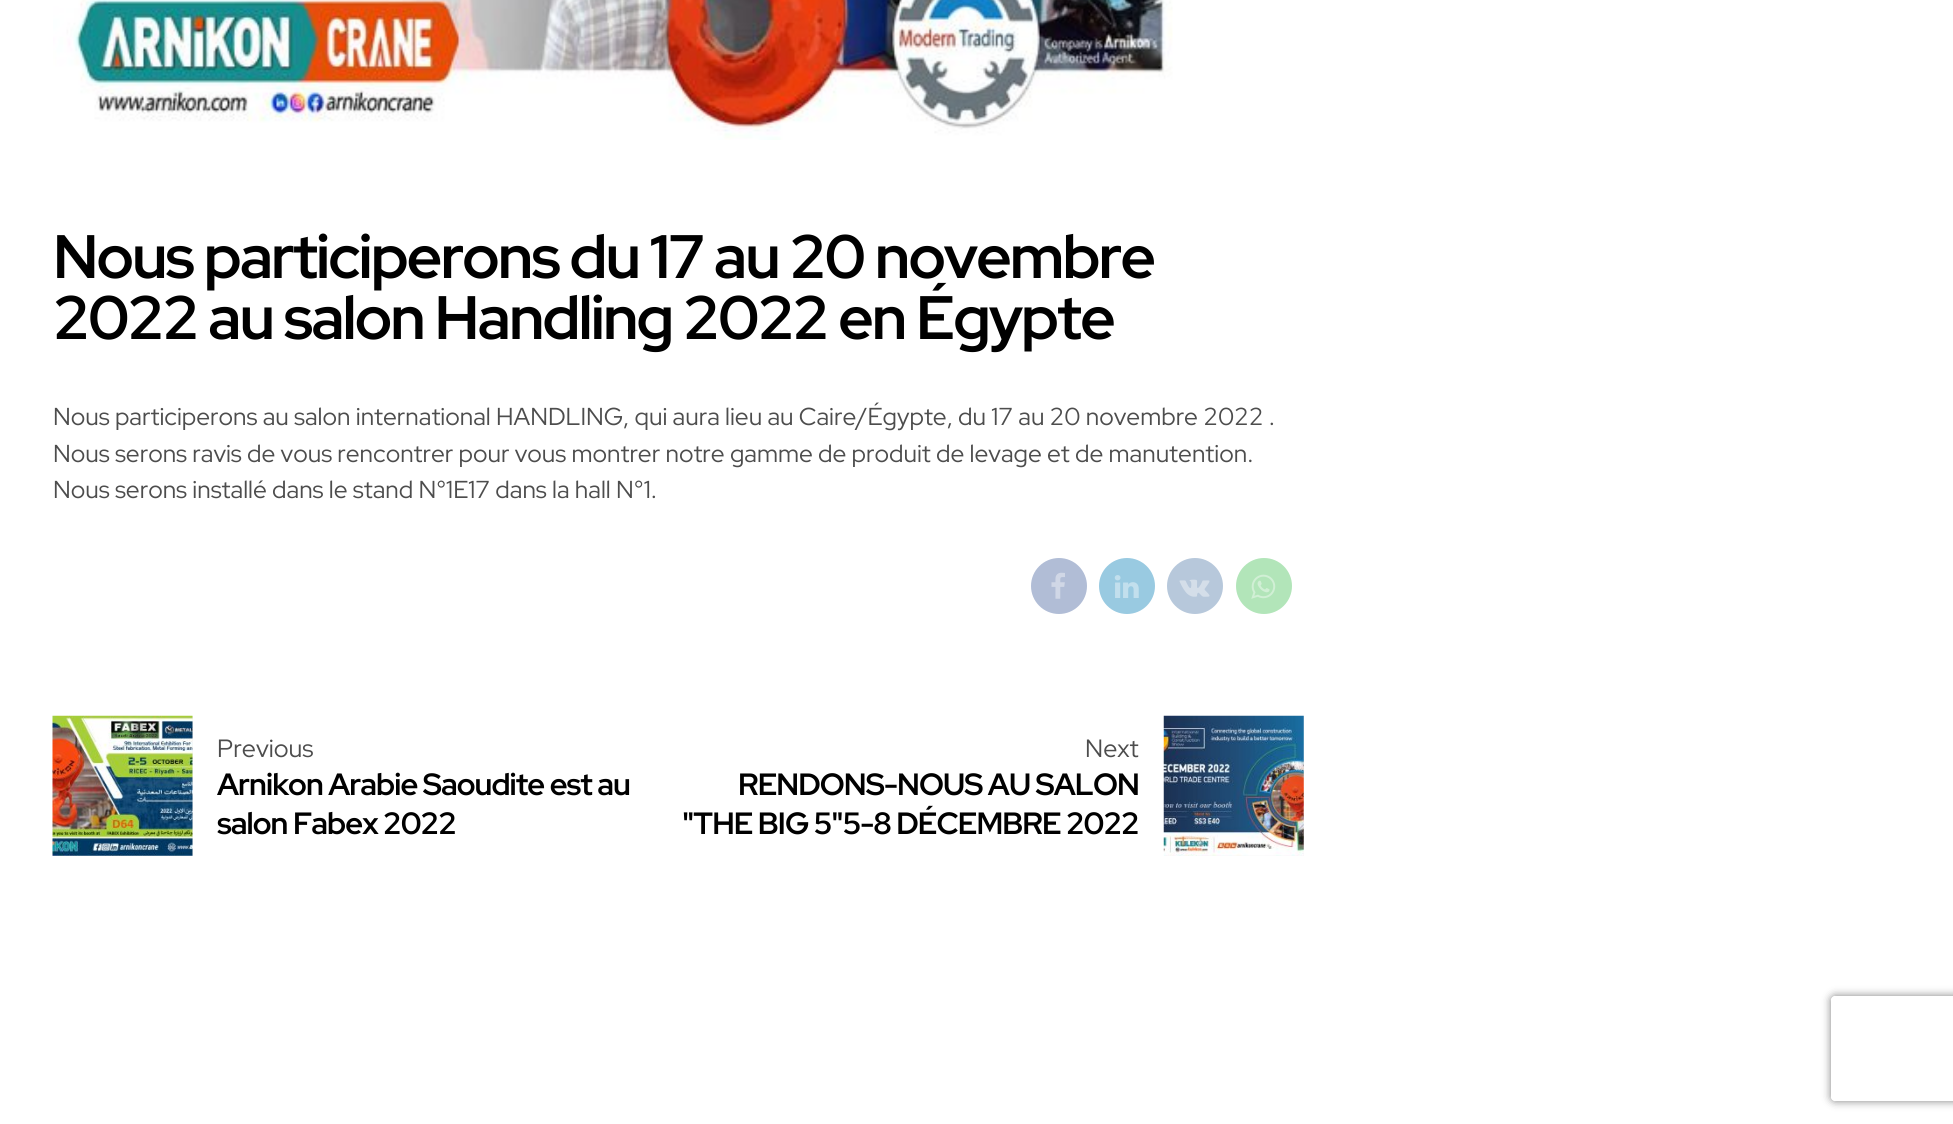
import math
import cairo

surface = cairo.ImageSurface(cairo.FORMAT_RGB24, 1953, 1124)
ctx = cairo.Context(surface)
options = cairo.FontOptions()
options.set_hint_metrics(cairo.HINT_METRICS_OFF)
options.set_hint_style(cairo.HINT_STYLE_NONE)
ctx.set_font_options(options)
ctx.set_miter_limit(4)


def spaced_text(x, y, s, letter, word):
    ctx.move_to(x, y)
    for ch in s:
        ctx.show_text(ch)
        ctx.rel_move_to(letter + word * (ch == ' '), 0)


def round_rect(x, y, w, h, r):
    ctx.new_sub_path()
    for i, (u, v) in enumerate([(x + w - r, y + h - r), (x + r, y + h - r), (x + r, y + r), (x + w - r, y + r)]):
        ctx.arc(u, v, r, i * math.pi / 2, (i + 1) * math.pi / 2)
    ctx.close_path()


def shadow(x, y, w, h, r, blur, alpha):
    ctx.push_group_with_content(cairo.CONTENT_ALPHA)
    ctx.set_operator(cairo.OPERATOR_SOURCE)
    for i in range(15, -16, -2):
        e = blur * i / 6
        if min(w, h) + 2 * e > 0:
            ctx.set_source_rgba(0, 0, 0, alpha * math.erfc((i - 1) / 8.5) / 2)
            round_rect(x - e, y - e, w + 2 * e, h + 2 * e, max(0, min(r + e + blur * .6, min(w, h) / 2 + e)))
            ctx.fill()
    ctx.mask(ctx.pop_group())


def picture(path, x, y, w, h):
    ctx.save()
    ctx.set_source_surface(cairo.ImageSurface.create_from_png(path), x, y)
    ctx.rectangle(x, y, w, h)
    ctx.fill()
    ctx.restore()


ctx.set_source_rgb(1, 1, 1)
ctx.paint()
picture("img1.png", 53, 0, 1120, 140)
ctx.select_font_face("Red Hat Display", cairo.FONT_SLANT_NORMAL, cairo.FONT_WEIGHT_BOLD)
ctx.set_font_size(61.25)
ctx.set_source_rgb(0, 0, 0)
spaced_text(53, 278, "Nous participerons du 17 au 20 novembre", -1.85, 0)
spaced_text(53, 339, "2022 au salon Handling 2022 en Égypte", -1.85, 0)
ctx.select_font_face("Red Hat Display")
ctx.set_font_size(24.5)
ctx.set_source_rgb(0.302, 0.302, 0.302)
ctx.move_to(53, 425)
ctx.show_text("Nous participerons au salon international HANDLING, qui aura lieu au Caire/Égypte, du 17 au 20 novembre 2022 .")
ctx.move_to(53, 462)
ctx.show_text("Nous serons ravis de vous rencontrer pour vous montrer notre gamme de produit de levage et de manutention.")
ctx.move_to(53, 498)
ctx.show_text("Nous serons installé dans le stand N°1E17 dans la hall N°1.")
ctx.set_source_rgb(0.694, 0.741, 0.839)
ctx.new_path()
ctx.arc(1059, 586, 28, 0, 2 * math.pi)
ctx.fill()
picture("img2.png", 1051, 572, 14, 27)
ctx.set_source_rgb(0.6, 0.792, 0.882)
ctx.arc(1127, 586, 28, 0, 2 * math.pi)
ctx.fill()
picture("img3.png", 1114, 575, 25, 23)
ctx.set_source_rgb(0.718, 0.784, 0.859)
ctx.arc(1195, 586, 28, 0, 2 * math.pi)
ctx.fill()
picture("img4.png", 1179, 579, 31, 18)
ctx.set_source_rgb(0.698, 0.898, 0.725)
ctx.arc(1264, 586, 28, 0, 2 * math.pi)
ctx.fill()
picture("img5.png", 1251, 574, 25, 25)
ctx.set_source_rgb(0.949, 0.949, 0.949)
ctx.rectangle(53, 716, 140, 140)
ctx.fill()
picture("img6.png", 52, 715, 141, 141)
ctx.set_font_size(25)
ctx.set_source_rgb(0.302, 0.302, 0.302)
ctx.move_to(217, 757)
ctx.show_text("Previous")
ctx.select_font_face("Red Hat Display", cairo.FONT_SLANT_NORMAL, cairo.FONT_WEIGHT_BOLD)
ctx.set_font_size(30.75)
ctx.set_source_rgb(0, 0, 0)
spaced_text(217, 795, "Arnikon Arabie Saoudite est au", -0.9, 0)
spaced_text(217, 834, "salon Fabex 2022", -0.9, 0)
ctx.set_source_rgb(0.949, 0.949, 0.949)
ctx.rectangle(1164, 716, 140, 140)
ctx.fill()
picture("img7.png", 1163, 715, 141, 141)
ctx.select_font_face("Red Hat Display")
ctx.set_font_size(25)
ctx.set_source_rgb(0.302, 0.302, 0.302)
ctx.move_to(1085, 757)
ctx.show_text("Next")
ctx.select_font_face("Red Hat Display", cairo.FONT_SLANT_NORMAL, cairo.FONT_WEIGHT_BOLD)
ctx.set_font_size(30.75)
ctx.set_source_rgb(0, 0, 0)
spaced_text(738, 795, "RENDONS-NOUS AU SALON", -0.9, 0)
spaced_text(682, 834, "\"THE BIG 5\"5-8 DÉCEMBRE 2022", -0.9, 0)
ctx.save()
ctx.set_fill_rule(cairo.FILL_RULE_EVEN_ODD)
ctx.new_path()
ctx.move_to(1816, 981)
ctx.line_to(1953, 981)
ctx.line_to(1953, 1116)
ctx.line_to(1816, 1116)
ctx.close_path()
ctx.move_to(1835, 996)
ctx.line_to(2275, 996)
ctx.curve_to(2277, 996, 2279, 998, 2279, 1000)
ctx.line_to(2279, 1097)
ctx.curve_to(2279, 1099, 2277, 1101, 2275, 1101)
ctx.line_to(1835, 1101)
ctx.curve_to(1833, 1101, 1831, 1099, 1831, 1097)
ctx.line_to(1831, 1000)
ctx.curve_to(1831, 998, 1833, 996, 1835, 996)
ctx.close_path()
ctx.clip()
ctx.set_source_rgb(0.502, 0.502, 0.502)
shadow(1831, 996, 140, 105, 4, 4.5, 1)
ctx.restore()
surface.write_to_png("page.png")
